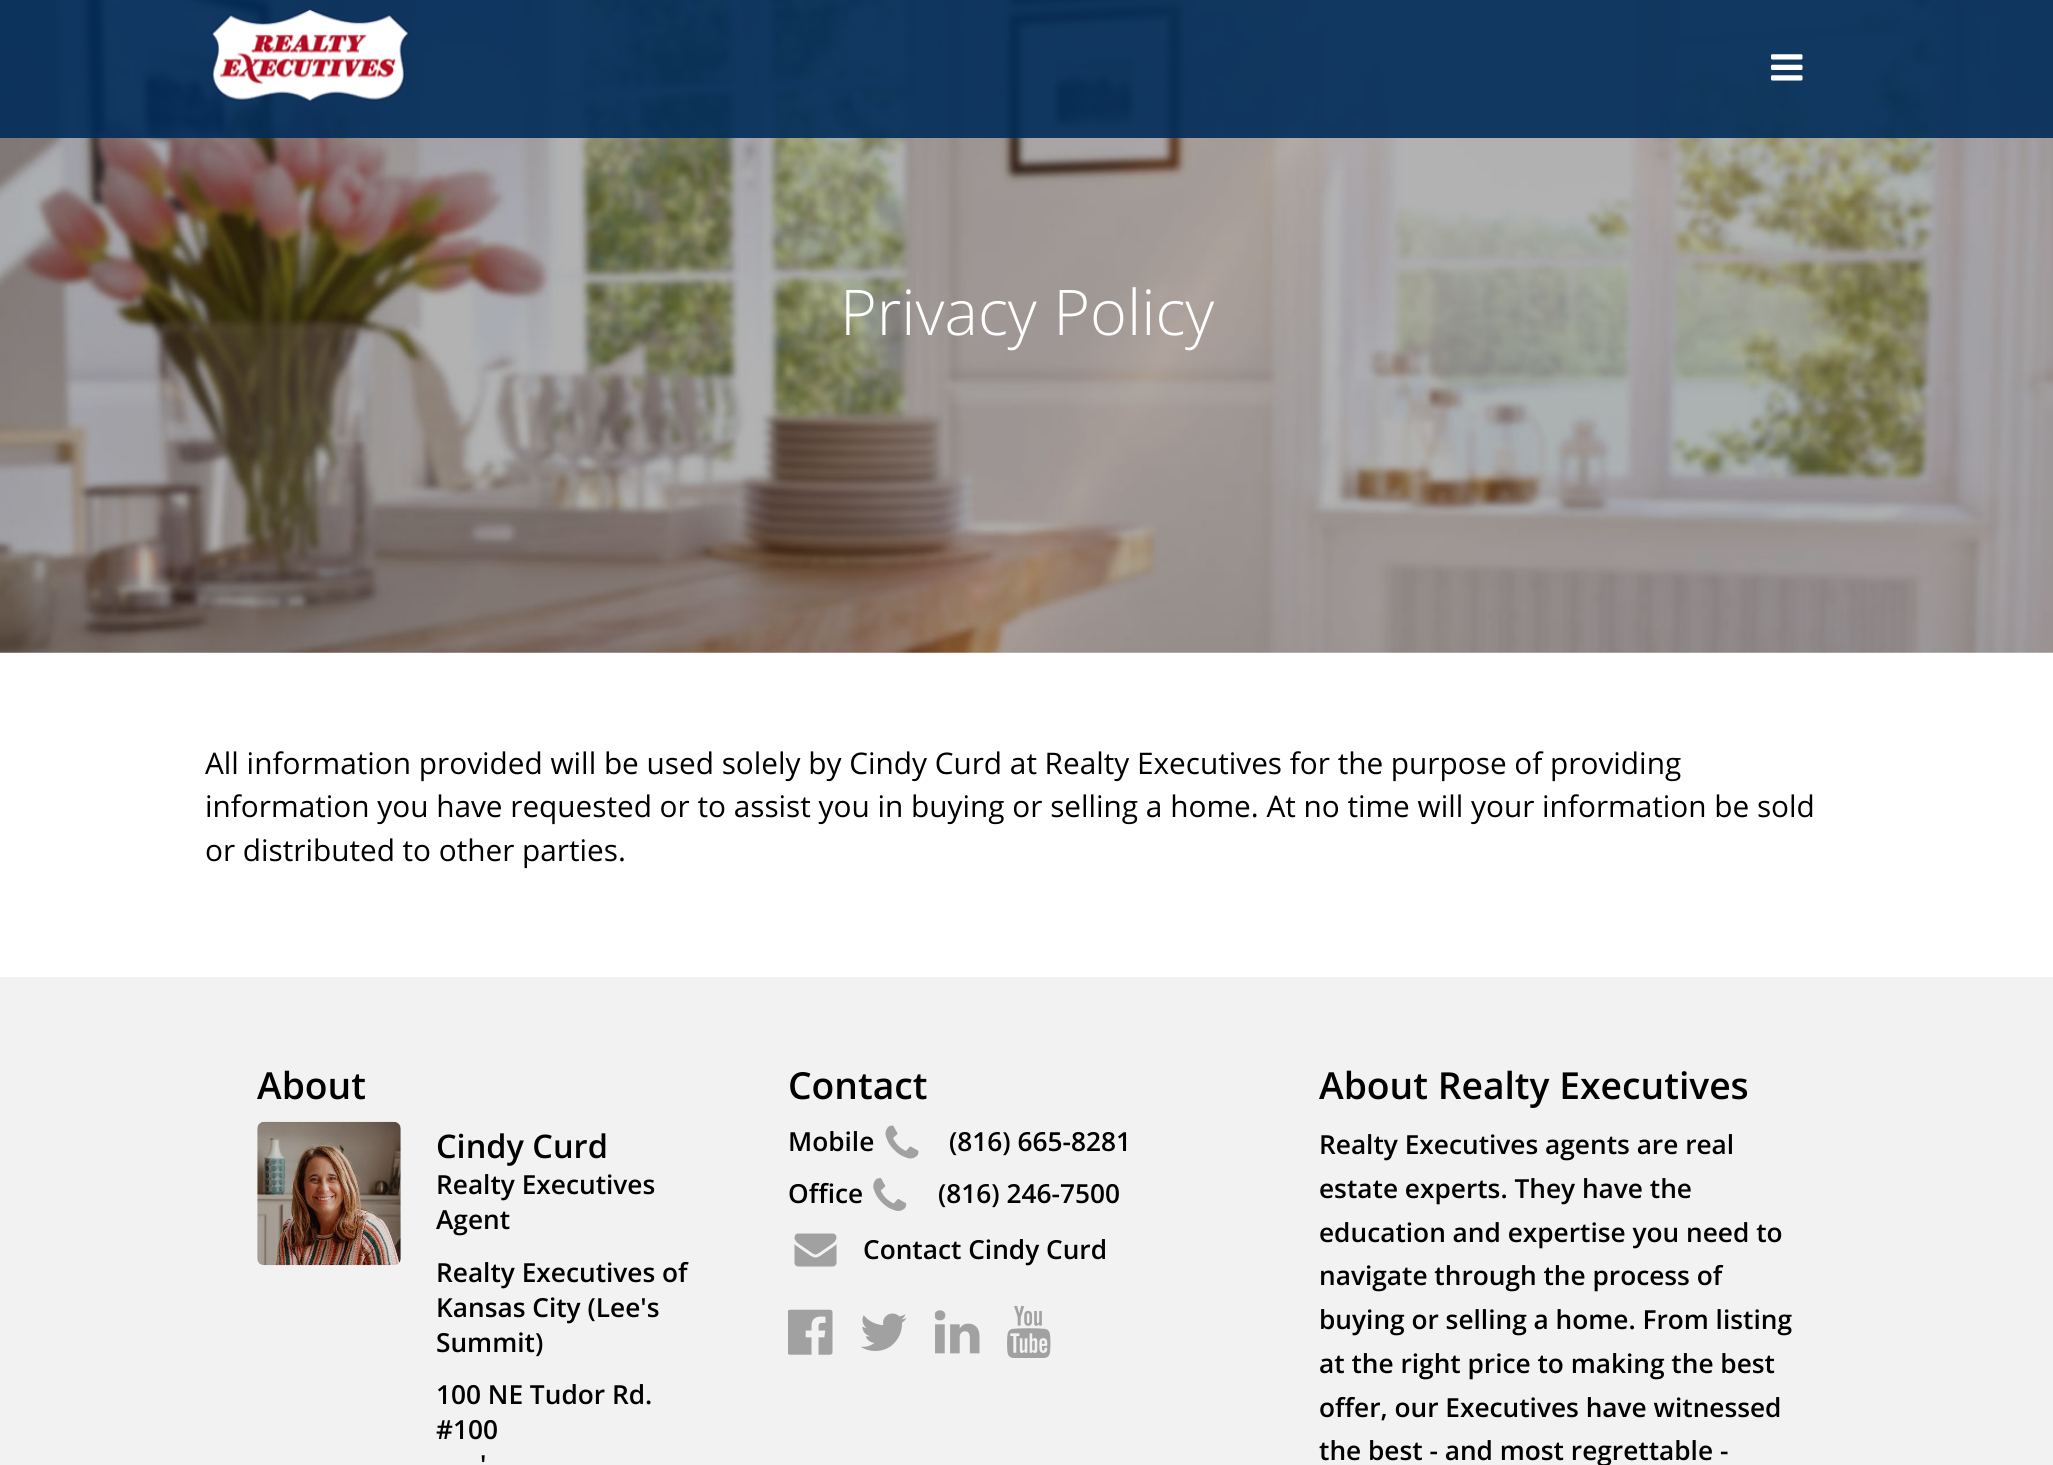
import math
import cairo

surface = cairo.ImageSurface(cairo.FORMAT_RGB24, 2053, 1465)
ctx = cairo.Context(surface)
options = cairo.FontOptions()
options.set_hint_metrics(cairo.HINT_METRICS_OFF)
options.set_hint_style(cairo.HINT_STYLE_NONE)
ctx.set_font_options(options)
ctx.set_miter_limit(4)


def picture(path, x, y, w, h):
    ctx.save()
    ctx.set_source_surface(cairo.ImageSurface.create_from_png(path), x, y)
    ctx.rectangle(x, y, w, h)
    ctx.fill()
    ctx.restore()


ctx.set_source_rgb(1, 1, 1)
ctx.paint()
picture("img3.png", 0, 0, 2053, 653)
ctx.set_source_rgba(0, 0.173, 0.349, 0.9)
ctx.rectangle(0, 0, 2053, 138)
ctx.fill()
picture("img1.png", 211, 8, 199, 94)
picture("img2.png", 1771, 54, 32, 27)
ctx.select_font_face("Open Sans Light")
ctx.set_font_size(63)
ctx.set_source_rgb(1, 1, 1)
ctx.move_to(840, 335)
ctx.show_text("Privacy Policy")
ctx.select_font_face("Open Sans")
ctx.set_font_size(29.75)
ctx.set_source_rgb(0, 0, 0)
ctx.move_to(205, 774)
ctx.show_text("All information provided will be used solely by Cindy Curd at Realty Executives for the purpose of providing")
ctx.move_to(205, 817)
ctx.show_text("information you have requested or to assist you in buying or selling a home. At no time will your information be sold")
ctx.move_to(205, 861)
ctx.show_text("or distributed to other parties.")
ctx.set_source_rgb(0.949, 0.949, 0.949)
ctx.rectangle(0, 977, 2053, 488)
ctx.fill()
ctx.select_font_face("Open Sans SemiBold")
ctx.set_font_size(37.25)
ctx.set_source_rgb(0, 0, 0)
ctx.move_to(257, 1099)
ctx.show_text("About")
picture("img4.png", 257, 1121, 144, 145)
ctx.set_font_size(32.5)
ctx.move_to(436, 1158)
ctx.show_text("Cindy Curd")
ctx.set_font_size(26.25)
ctx.move_to(436, 1194)
ctx.show_text("Realty Executives")
ctx.move_to(436, 1229)
ctx.show_text("Agent")
ctx.move_to(436, 1282)
ctx.show_text("Realty Executives of")
ctx.move_to(436, 1317)
ctx.show_text("Kansas City (Lee's")
ctx.move_to(436, 1352)
ctx.show_text("Summit)")
ctx.move_to(436, 1404)
ctx.show_text("100 NE Tudor Rd.")
ctx.move_to(436, 1439)
ctx.show_text("#100")
ctx.move_to(480, 1474)
ctx.show_text("'")
ctx.set_font_size(37.25)
ctx.move_to(788, 1099)
ctx.show_text("Contact")
ctx.set_font_size(26.25)
ctx.move_to(788, 1151)
ctx.show_text("Mobile")
picture("img5.png", 885, 1125, 34, 34)
ctx.move_to(949, 1151)
ctx.show_text("(816) 665-8281")
ctx.move_to(788, 1203)
ctx.show_text("Office")
picture("img6.png", 873, 1178, 34, 33)
ctx.move_to(938, 1203)
ctx.show_text("(816) 246-7500")
picture("img7.png", 794, 1233, 43, 34)
ctx.move_to(863, 1259)
ctx.show_text("Contact Cindy Curd")
picture("img8.png", 788, 1309, 45, 46)
picture("img9.png", 860, 1313, 47, 38)
picture("img10.png", 935, 1310, 45, 44)
picture("img11.png", 1007, 1306, 44, 52)
ctx.set_font_size(37.25)
ctx.move_to(1319, 1099)
ctx.show_text("About Realty Executives")
ctx.set_font_size(26.25)
ctx.move_to(1319, 1154)
ctx.show_text("Realty Executives agents are real")
ctx.move_to(1319, 1198)
ctx.show_text("estate experts. They have the")
ctx.move_to(1319, 1242)
ctx.show_text("education and expertise you need to")
ctx.move_to(1319, 1285)
ctx.show_text("navigate through the process of")
ctx.move_to(1319, 1329)
ctx.show_text("buying or selling a home. From listing")
ctx.move_to(1319, 1373)
ctx.show_text("at the right price to making the best")
ctx.move_to(1319, 1417)
ctx.show_text("offer, our Executives have witnessed")
ctx.move_to(1319, 1460)
ctx.show_text("the best - and most regrettable -")
surface.write_to_png("page.png")
